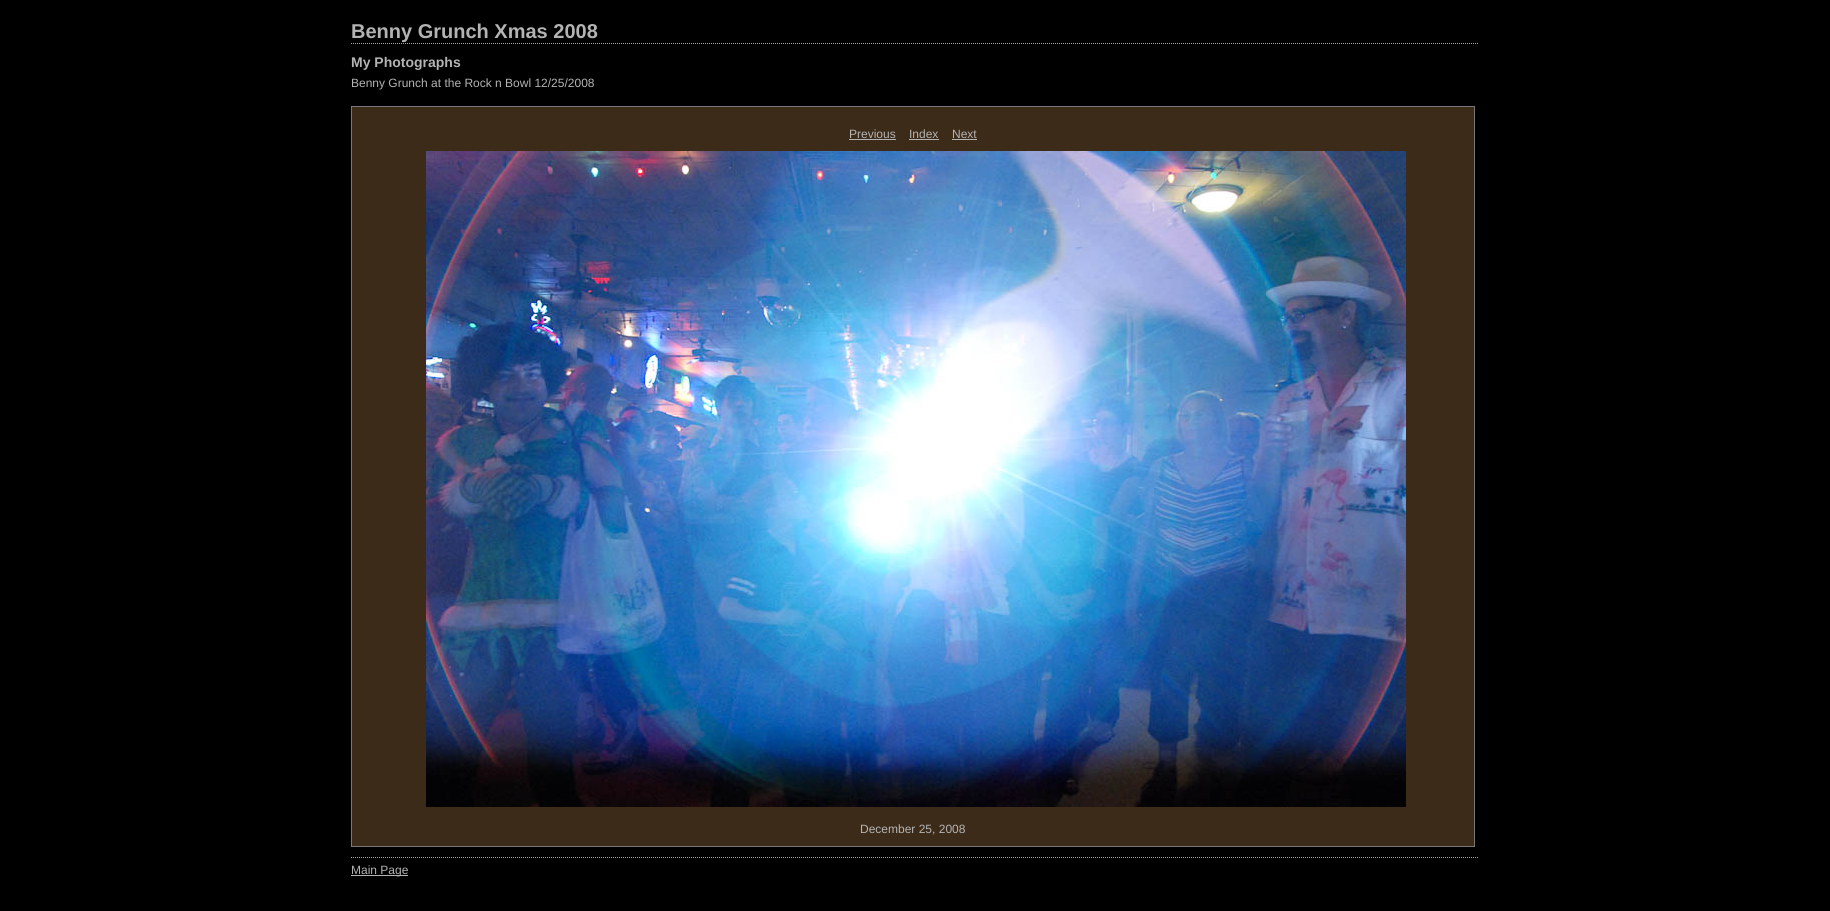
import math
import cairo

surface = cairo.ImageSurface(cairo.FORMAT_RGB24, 1830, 911)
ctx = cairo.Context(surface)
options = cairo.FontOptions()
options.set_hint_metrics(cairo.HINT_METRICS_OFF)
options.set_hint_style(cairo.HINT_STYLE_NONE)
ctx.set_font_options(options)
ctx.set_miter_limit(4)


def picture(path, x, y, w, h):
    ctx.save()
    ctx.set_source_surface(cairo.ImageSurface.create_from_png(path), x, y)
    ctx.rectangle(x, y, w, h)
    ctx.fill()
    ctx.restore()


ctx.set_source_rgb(0, 0, 0)
ctx.paint()
ctx.new_path()
ctx.move_to(351, 43.5)
ctx.line_to(1479, 43.5)
ctx.set_source_rgb(0.651, 0.651, 0.651)
ctx.set_line_width(1)
ctx.set_dash([1, 1])
ctx.stroke()
ctx.select_font_face("Liberation Sans", cairo.FONT_SLANT_NORMAL, cairo.FONT_WEIGHT_BOLD)
ctx.set_font_size(20)
ctx.set_source_rgb(0.702, 0.702, 0.702)
ctx.move_to(351, 38)
ctx.show_text("Benny Grunch Xmas 2008")
ctx.set_font_size(14)
ctx.move_to(351, 67)
ctx.show_text("My Photographs")
ctx.select_font_face("Liberation Sans")
ctx.set_font_size(12)
ctx.move_to(351, 87)
ctx.show_text("Benny Grunch at the Rock n Bowl 12/25/2008")
ctx.new_path()
ctx.move_to(351, 857.5)
ctx.line_to(1479, 857.5)
ctx.set_source_rgb(0.651, 0.651, 0.651)
ctx.stroke()
ctx.set_source_rgb(0.239, 0.169, 0.102)
ctx.rectangle(351.5, 106.5, 1123, 740)
ctx.fill_preserve()
ctx.set_source_rgb(0.471, 0.471, 0.471)
ctx.set_dash([])
ctx.stroke()
ctx.set_source_rgb(0.702, 0.702, 0.702)
ctx.move_to(849, 138)
ctx.show_text("Previous")
ctx.rectangle(849, 139, 47, 1)
ctx.fill()
ctx.move_to(909, 138)
ctx.show_text("Index")
ctx.rectangle(909, 139, 30, 1)
ctx.fill()
ctx.move_to(952, 138)
ctx.show_text("Next")
ctx.rectangle(952, 139, 25, 1)
ctx.fill()
picture("img1.png", 426, 151, 980, 656)
ctx.move_to(860, 833)
ctx.show_text("December 25, 2008")
ctx.rectangle(351, 875, 57, 1)
ctx.fill()
ctx.move_to(351, 874)
ctx.show_text("Main Page")
surface.write_to_png("page.png")
